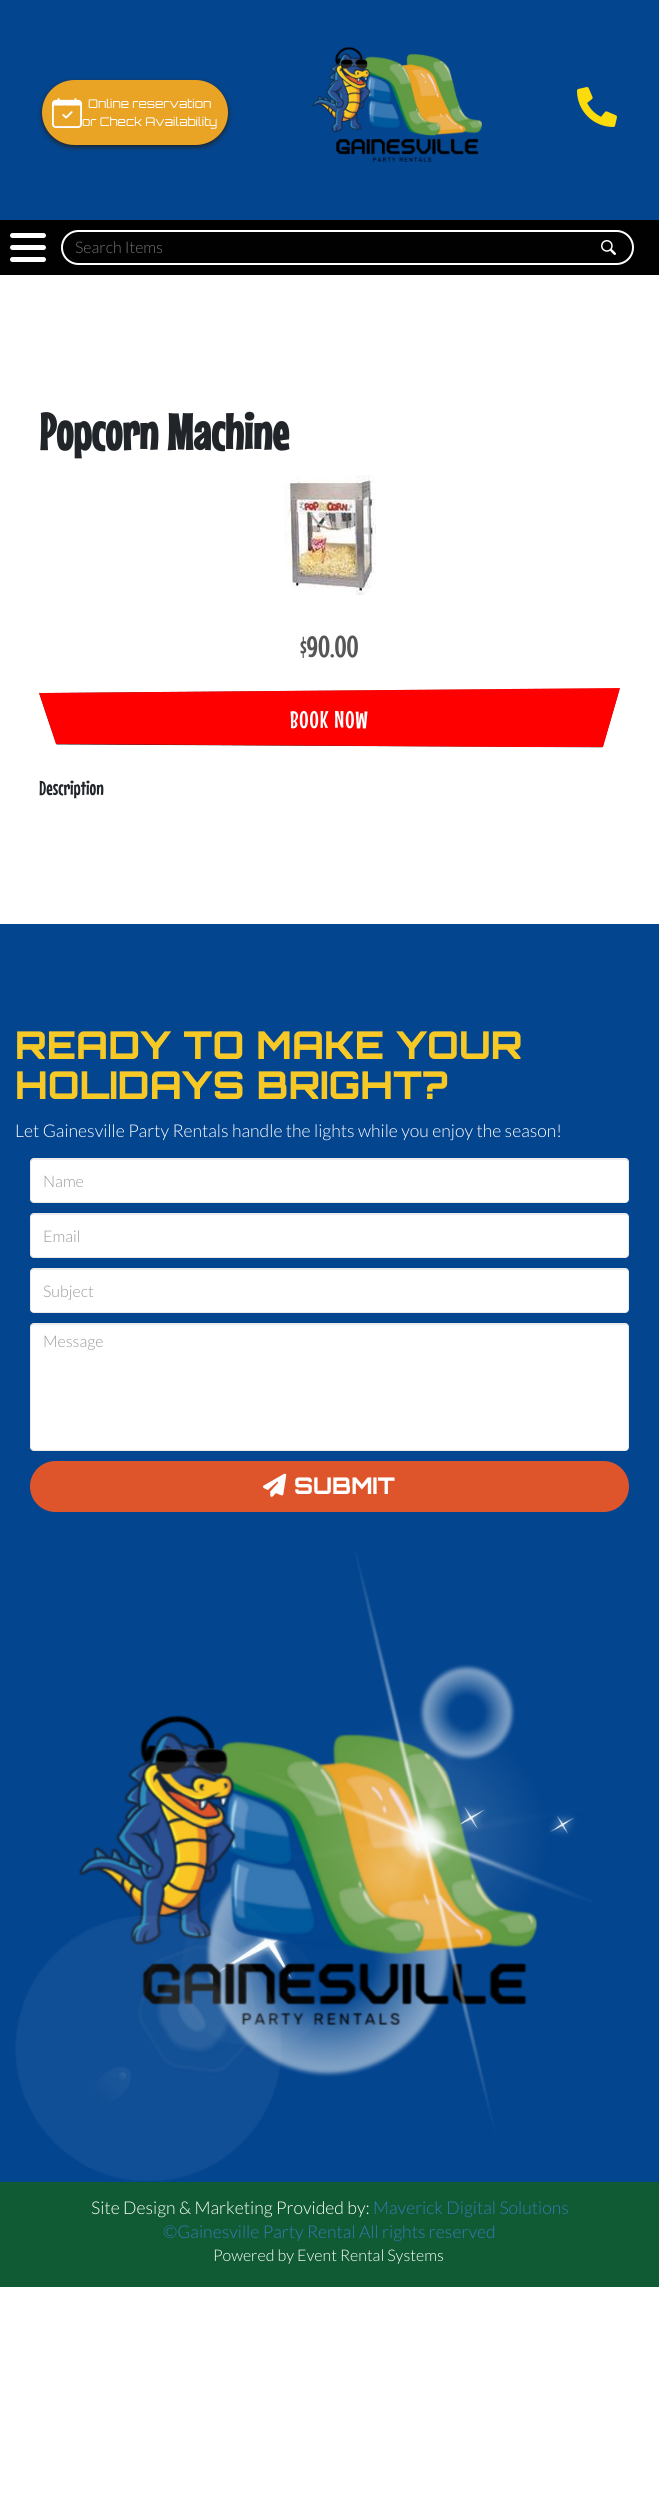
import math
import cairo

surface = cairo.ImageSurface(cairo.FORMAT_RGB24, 659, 2516)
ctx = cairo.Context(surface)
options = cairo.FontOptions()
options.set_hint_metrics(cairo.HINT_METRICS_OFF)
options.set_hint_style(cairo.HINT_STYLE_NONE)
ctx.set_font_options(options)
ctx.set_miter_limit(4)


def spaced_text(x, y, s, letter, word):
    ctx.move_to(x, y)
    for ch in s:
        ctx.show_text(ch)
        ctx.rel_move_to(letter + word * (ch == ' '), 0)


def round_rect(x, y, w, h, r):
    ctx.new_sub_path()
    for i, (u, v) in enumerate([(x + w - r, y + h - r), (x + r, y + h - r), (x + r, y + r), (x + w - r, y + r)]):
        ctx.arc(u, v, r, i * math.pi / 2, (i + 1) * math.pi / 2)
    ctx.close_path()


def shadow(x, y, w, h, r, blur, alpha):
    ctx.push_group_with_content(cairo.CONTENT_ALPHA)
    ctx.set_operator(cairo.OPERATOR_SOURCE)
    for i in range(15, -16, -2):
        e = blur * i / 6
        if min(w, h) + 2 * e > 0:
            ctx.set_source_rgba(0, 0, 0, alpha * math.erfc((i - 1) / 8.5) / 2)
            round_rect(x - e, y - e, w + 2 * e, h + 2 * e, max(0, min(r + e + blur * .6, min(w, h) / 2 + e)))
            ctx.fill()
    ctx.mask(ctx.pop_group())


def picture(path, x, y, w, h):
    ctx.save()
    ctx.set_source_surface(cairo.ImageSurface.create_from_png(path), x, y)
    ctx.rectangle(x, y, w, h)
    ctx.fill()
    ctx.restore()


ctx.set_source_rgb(1, 1, 1)
ctx.paint()
ctx.set_source_rgb(0.012, 0.271, 0.561)
ctx.rectangle(0, 0, 659, 220)
ctx.fill()
ctx.set_source_rgb(0.133, 0.133, 0.133)
shadow(42, 82, 186, 65, 32.5, 2.5, 1)
ctx.set_source_rgb(0.914, 0.639, 0.145)
round_rect(42, 80, 186, 65, 32.5)
ctx.fill()
picture("img1.png", 52, 98, 30, 30)
ctx.select_font_face("Orbitron")
ctx.set_font_size(12)
ctx.set_source_rgb(1, 1, 1)
ctx.move_to(88, 108)
ctx.show_text("Online reservation")
ctx.move_to(82, 126)
ctx.show_text("or Check Availability")
picture("img2.png", 312, 46, 170, 116)
picture("img3.png", 577, 87, 40, 40)
ctx.set_source_rgb(0, 0.004, 0)
ctx.rectangle(0, 220, 659, 55)
ctx.fill()
ctx.set_source_rgb(1, 1, 1)
round_rect(10, 233, 36, 5, 2.5)
ctx.fill()
round_rect(10, 245, 36, 5, 2.5)
ctx.fill()
round_rect(10, 257, 36, 5, 2.5)
ctx.fill()
round_rect(62, 231, 571, 33, 16.5)
ctx.stroke()
ctx.select_font_face("Lato Light")
ctx.set_font_size(16)
ctx.set_source_rgb(0.459, 0.459, 0.459)
ctx.move_to(75, 253)
ctx.show_text("Search Items")
picture("img4.png", 601, 240, 15, 15)
ctx.select_font_face("Mouse Memoirs", cairo.FONT_SLANT_NORMAL, cairo.FONT_WEIGHT_BOLD)
ctx.set_font_size(51)
ctx.set_source_rgb(0.129, 0.145, 0.161)
ctx.move_to(39, 450)
ctx.show_text("Popcorn Machine")
picture("img5.png", 284, 475, 92, 120)
ctx.select_font_face("Mouse Memoirs")
ctx.set_font_size(30)
ctx.set_source_rgb(0.337, 0.337, 0.337)
ctx.move_to(300, 657)
ctx.show_text("$90.00")
ctx.save()
ctx.new_path()
ctx.move_to(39, 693)
ctx.line_to(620, 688)
ctx.line_to(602.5, 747.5)
ctx.line_to(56.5, 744.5)
ctx.close_path()
ctx.clip()
ctx.set_source_rgb(0.133, 0.133, 0.133)
shadow(39, 690, 581, 59, 0, 2.5, 1)
ctx.restore()
ctx.set_source_rgb(1, 0, 0)
ctx.new_path()
ctx.move_to(39, 693)
ctx.line_to(620, 688)
ctx.line_to(603, 747)
ctx.line_to(522, 747)
ctx.line_to(56, 744)
ctx.close_path()
ctx.fill()
ctx.set_font_size(24)
ctx.set_source_rgb(1, 1, 1)
spaced_text(290, 728, "BOOK NOW", 1, 0)
ctx.set_font_size(20)
ctx.set_source_rgb(0.129, 0.145, 0.161)
ctx.move_to(39, 795)
ctx.show_text("Description")
ctx.set_source_rgb(0.012, 0.271, 0.561)
ctx.rectangle(0, 924, 659, 1258)
ctx.fill()
ctx.select_font_face("Orbitron ExtraBold")
ctx.set_font_size(38.4)
ctx.set_source_rgb(0.965, 0.788, 0.149)
ctx.move_to(15, 1059)
ctx.show_text("READY TO MAKE YOUR")
ctx.move_to(15, 1099)
ctx.show_text("HOLIDAYS BRIGHT?")
ctx.select_font_face("Lato Light")
ctx.set_font_size(17.6)
ctx.set_source_rgb(1, 1, 1)
ctx.move_to(15, 1137)
ctx.show_text("Let Gainesville Party Rentals handle the lights while you enjoy the season!")
round_rect(30, 1158, 599, 45, 4)
ctx.fill()
ctx.set_source_rgb(0.925, 0.925, 0.925)
ctx.new_path()
ctx.move_to(34, 1160)
ctx.line_to(625, 1160)
ctx.curve_to(627, 1160, 628, 1161, 628, 1163)
ctx.line_to(628, 1162)
ctx.curve_to(628, 1160, 627, 1159, 625, 1159)
ctx.line_to(34, 1159)
ctx.curve_to(32, 1159, 31, 1160, 31, 1162)
ctx.line_to(31, 1163)
ctx.curve_to(31, 1161, 32, 1160, 34, 1160)
ctx.close_path()
ctx.fill()
round_rect(30.5, 1158.5, 598, 44, 3.5)
ctx.set_source_rgba(0, 0, 0, 0.08)
ctx.set_line_width(1)
ctx.stroke()
ctx.set_font_size(16)
ctx.set_source_rgb(0.6, 0.6, 0.6)
ctx.move_to(43, 1187)
ctx.show_text("Name")
ctx.set_source_rgb(1, 1, 1)
round_rect(30, 1213, 599, 45, 4)
ctx.fill()
ctx.set_source_rgb(0.925, 0.925, 0.925)
ctx.new_path()
ctx.move_to(34, 1215)
ctx.line_to(625, 1215)
ctx.curve_to(627, 1215, 628, 1216, 628, 1218)
ctx.line_to(628, 1217)
ctx.curve_to(628, 1215, 627, 1214, 625, 1214)
ctx.line_to(34, 1214)
ctx.curve_to(32, 1214, 31, 1215, 31, 1217)
ctx.line_to(31, 1218)
ctx.curve_to(31, 1216, 32, 1215, 34, 1215)
ctx.close_path()
ctx.fill()
round_rect(30.5, 1213.5, 598, 44, 3.5)
ctx.set_source_rgba(0, 0, 0, 0.08)
ctx.stroke()
ctx.set_source_rgb(0.6, 0.6, 0.6)
ctx.move_to(43, 1242)
ctx.show_text("Email")
ctx.set_source_rgb(1, 1, 1)
round_rect(30, 1268, 599, 45, 4)
ctx.fill()
ctx.set_source_rgb(0.925, 0.925, 0.925)
ctx.new_path()
ctx.move_to(34, 1270)
ctx.line_to(625, 1270)
ctx.curve_to(627, 1270, 628, 1271, 628, 1273)
ctx.line_to(628, 1272)
ctx.curve_to(628, 1270, 627, 1269, 625, 1269)
ctx.line_to(34, 1269)
ctx.curve_to(32, 1269, 31, 1270, 31, 1272)
ctx.line_to(31, 1273)
ctx.curve_to(31, 1271, 32, 1270, 34, 1270)
ctx.close_path()
ctx.fill()
round_rect(30.5, 1268.5, 598, 44, 3.5)
ctx.set_source_rgba(0, 0, 0, 0.08)
ctx.stroke()
ctx.set_source_rgb(0.6, 0.6, 0.6)
ctx.move_to(43, 1297)
ctx.show_text("Subject")
ctx.set_source_rgb(1, 1, 1)
round_rect(30, 1323, 599, 128, 4)
ctx.fill()
ctx.set_source_rgb(0.925, 0.925, 0.925)
ctx.new_path()
ctx.move_to(34, 1325)
ctx.line_to(625, 1325)
ctx.curve_to(627, 1325, 628, 1326, 628, 1328)
ctx.line_to(628, 1327)
ctx.curve_to(628, 1325, 627, 1324, 625, 1324)
ctx.line_to(34, 1324)
ctx.curve_to(32, 1324, 31, 1325, 31, 1327)
ctx.line_to(31, 1328)
ctx.curve_to(31, 1326, 32, 1325, 34, 1325)
ctx.close_path()
ctx.fill()
round_rect(30.5, 1323.5, 598, 127, 3.5)
ctx.set_source_rgba(0, 0, 0, 0.08)
ctx.stroke()
ctx.set_source_rgb(0.6, 0.6, 0.6)
ctx.move_to(43, 1347)
ctx.show_text("Message")
ctx.set_source_rgb(0.875, 0.333, 0.169)
round_rect(30, 1461, 599, 51, 25.5)
ctx.fill()
picture("img6.png", 263, 1473, 24, 24)
ctx.select_font_face("Orbitron ExtraBold")
ctx.set_font_size(23)
ctx.set_source_rgb(1, 1, 1)
ctx.move_to(294, 1494)
ctx.show_text("SUBMIT")
picture("img7.png", 15, 1551, 577, 630)
ctx.set_source_rgb(0.063, 0.357, 0.204)
ctx.rectangle(0, 2182, 659, 105)
ctx.fill()
ctx.select_font_face("Lato Light")
ctx.set_font_size(17.6)
ctx.set_source_rgb(1, 1, 1)
ctx.move_to(91, 2214)
ctx.show_text("Site Design & Marketing Provided by:")
ctx.set_source_rgb(0.2, 0.478, 0.718)
ctx.move_to(373, 2214)
ctx.show_text("Maverick Digital Solutions")
ctx.move_to(163, 2238)
ctx.show_text("©Gainesville Party Rental All rights reserved")
ctx.set_font_size(16)
ctx.set_source_rgb(1, 1, 1)
ctx.move_to(213, 2261)
ctx.show_text("Powered by Event Rental Systems")
surface.write_to_png("page.png")
